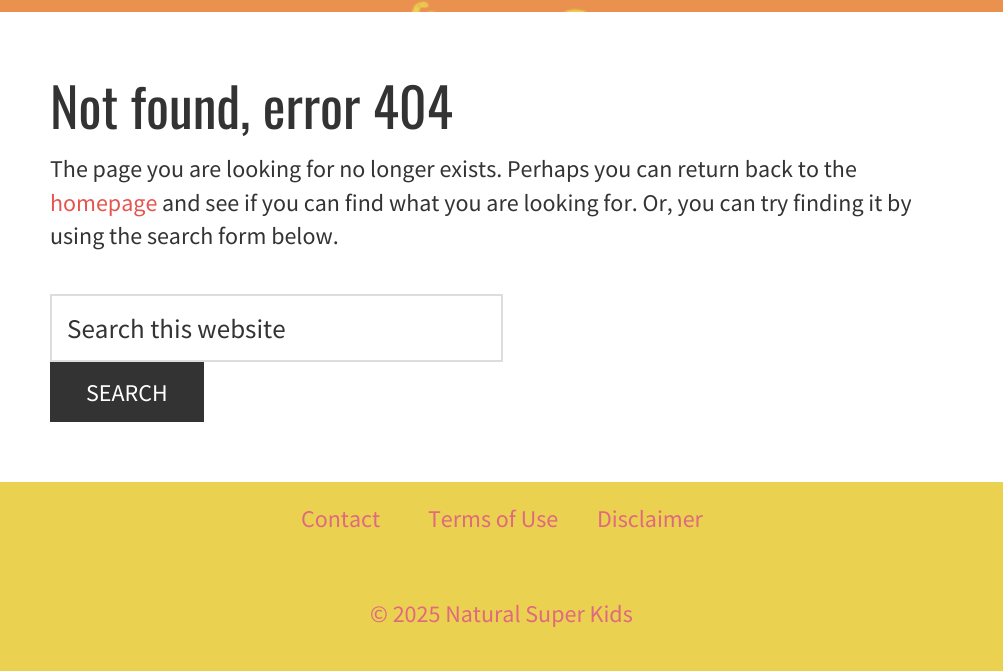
import math
import cairo

surface = cairo.ImageSurface(cairo.FORMAT_RGB24, 1003, 671)
ctx = cairo.Context(surface)
options = cairo.FontOptions()
options.set_hint_metrics(cairo.HINT_METRICS_OFF)
options.set_hint_style(cairo.HINT_STYLE_NONE)
ctx.set_font_options(options)
ctx.set_miter_limit(4)


def picture(path, x, y, w, h):
    ctx.save()
    ctx.set_source_surface(cairo.ImageSurface.create_from_png(path), x, y)
    ctx.rectangle(x, y, w, h)
    ctx.fill()
    ctx.restore()


ctx.set_source_rgb(1, 1, 1)
ctx.paint()
ctx.set_source_rgb(0.918, 0.569, 0.314)
ctx.rectangle(0, 0, 1003, 12)
ctx.fill()
picture("img1.png", 411, 1, 176, 11)
ctx.select_font_face("Oswald")
ctx.set_font_size(54)
ctx.set_source_rgb(0.2, 0.2, 0.2)
ctx.move_to(50, 129)
ctx.show_text("Not found, error 404")
ctx.select_font_face("Source Sans Pro")
ctx.set_font_size(24)
ctx.move_to(50, 177)
ctx.show_text("The page you are looking for no longer exists. Perhaps you can return back to the")
ctx.set_source_rgb(0.898, 0.333, 0.306)
ctx.move_to(50, 211)
ctx.show_text("homepage")
ctx.set_source_rgb(0.2, 0.2, 0.2)
ctx.move_to(162, 211)
ctx.show_text("and see if you can find what you are looking for. Or, you can try finding it by")
ctx.move_to(50, 244)
ctx.show_text("using the search form below.")
ctx.rectangle(51, 295, 451, 66)
ctx.set_source_rgb(0.867, 0.867, 0.867)
ctx.stroke()
ctx.set_font_size(27)
ctx.set_source_rgb(0.2, 0.2, 0.2)
ctx.move_to(67, 338)
ctx.show_text("Search this website")
ctx.rectangle(50, 362, 154, 60)
ctx.fill()
ctx.set_font_size(24)
ctx.set_source_rgb(1, 1, 1)
ctx.move_to(86, 401)
ctx.show_text("SEARCH")
ctx.set_source_rgb(0.918, 0.82, 0.314)
ctx.rectangle(0, 482, 1003, 189)
ctx.fill()
ctx.set_source_rgb(0.875, 0.412, 0.494)
ctx.move_to(301, 527)
ctx.show_text("Contact")
ctx.move_to(428, 527)
ctx.show_text("Terms of Use")
ctx.move_to(597, 527)
ctx.show_text("Disclaimer")
ctx.move_to(370, 622)
ctx.show_text("© 2025 Natural Super Kids")
surface.write_to_png("page.png")
